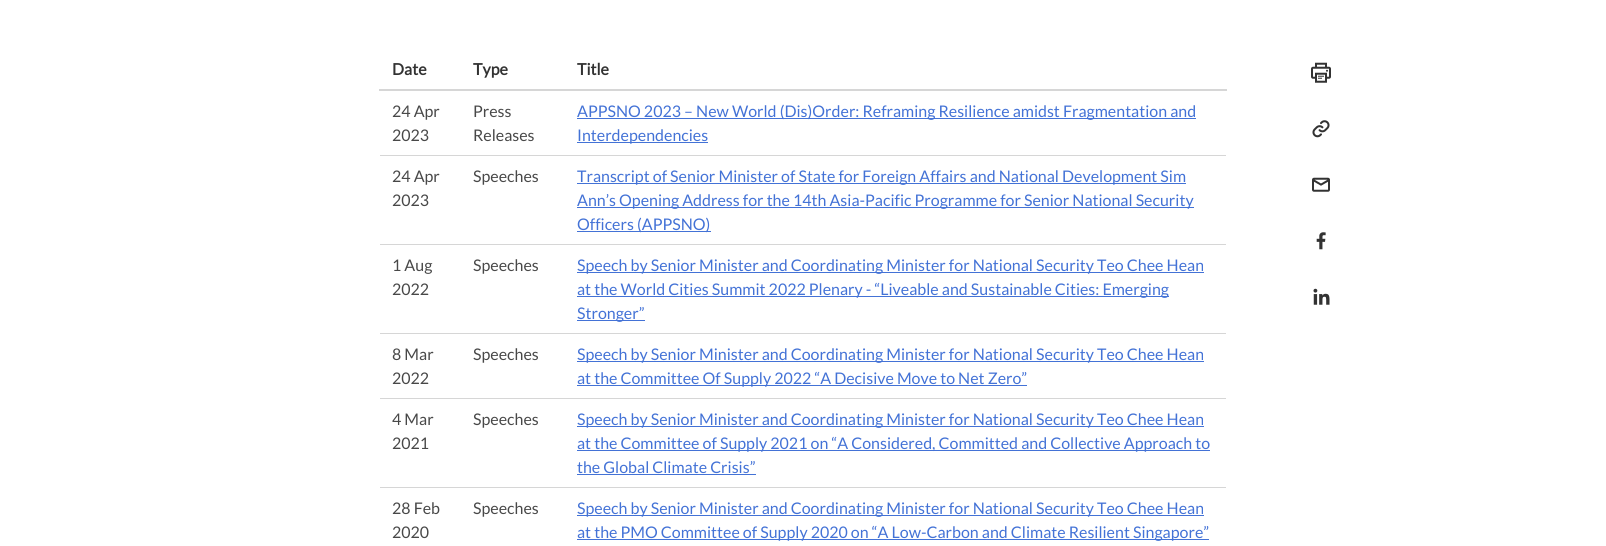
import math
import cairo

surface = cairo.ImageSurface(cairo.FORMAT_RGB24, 1606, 546)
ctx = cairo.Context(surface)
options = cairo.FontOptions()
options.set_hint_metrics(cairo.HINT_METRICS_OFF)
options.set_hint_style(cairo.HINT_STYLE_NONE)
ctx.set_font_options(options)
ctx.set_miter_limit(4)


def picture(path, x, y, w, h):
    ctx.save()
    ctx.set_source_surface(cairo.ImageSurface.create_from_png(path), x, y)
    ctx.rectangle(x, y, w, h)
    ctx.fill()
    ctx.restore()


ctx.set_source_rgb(1, 1, 1)
ctx.paint()
ctx.select_font_face("Lato", cairo.FONT_SLANT_NORMAL, cairo.FONT_WEIGHT_BOLD)
ctx.set_font_size(16)
ctx.set_source_rgb(0.196, 0.196, 0.196)
ctx.move_to(392, 75)
ctx.show_text("Date")
ctx.move_to(473, 75)
ctx.show_text("Type")
ctx.set_source_rgb(0.839, 0.839, 0.839)
ctx.rectangle(379, 89, 848, 2)
ctx.fill()
ctx.set_source_rgb(0.196, 0.196, 0.196)
ctx.move_to(577, 75)
ctx.show_text("Title")
ctx.select_font_face("Lato")
ctx.set_source_rgb(0.282, 0.282, 0.282)
ctx.move_to(392, 117)
ctx.show_text("24 Apr")
ctx.move_to(392, 141)
ctx.show_text("2023")
ctx.move_to(473, 117)
ctx.show_text("Press")
ctx.move_to(473, 141)
ctx.show_text("Releases")
ctx.set_source_rgb(0.839, 0.839, 0.839)
ctx.rectangle(380, 155, 846, 1)
ctx.fill()
ctx.set_source_rgb(0.263, 0.447, 0.839)
ctx.rectangle(577, 118, 619, 1)
ctx.fill()
ctx.move_to(577, 117)
ctx.show_text("APPSNO 2023 – New World (Dis)Order: Reframing Resilience amidst Fragmentation and")
ctx.rectangle(577, 142, 131, 1)
ctx.fill()
ctx.move_to(577, 141)
ctx.show_text("Interdependencies")
ctx.set_source_rgb(0.282, 0.282, 0.282)
ctx.move_to(392, 182)
ctx.show_text("24 Apr")
ctx.move_to(392, 206)
ctx.show_text("2023")
ctx.move_to(473, 182)
ctx.show_text("Speeches")
ctx.set_source_rgb(0.839, 0.839, 0.839)
ctx.rectangle(380, 244, 846, 1)
ctx.fill()
ctx.set_source_rgb(0.263, 0.447, 0.839)
ctx.rectangle(577, 183, 609, 1)
ctx.fill()
ctx.move_to(577, 182)
ctx.show_text("Transcript of Senior Minister of State for Foreign Affairs and National Development Sim")
ctx.rectangle(577, 207, 617, 1)
ctx.fill()
ctx.move_to(577, 206)
ctx.show_text("Ann’s Opening Address for the 14th Asia-Pacific Programme for Senior National Security")
ctx.rectangle(577, 231, 134, 1)
ctx.fill()
ctx.move_to(577, 230)
ctx.show_text("Officers (APPSNO)")
ctx.set_source_rgb(0.282, 0.282, 0.282)
ctx.move_to(392, 271)
ctx.show_text("1 Aug")
ctx.move_to(392, 295)
ctx.show_text("2022")
ctx.move_to(473, 271)
ctx.show_text("Speeches")
ctx.set_source_rgb(0.839, 0.839, 0.839)
ctx.rectangle(380, 333, 846, 1)
ctx.fill()
ctx.set_source_rgb(0.263, 0.447, 0.839)
ctx.rectangle(577, 272, 627, 1)
ctx.fill()
ctx.move_to(577, 271)
ctx.show_text("Speech by Senior Minister and Coordinating Minister for National Security Teo Chee Hean")
ctx.rectangle(577, 296, 592, 1)
ctx.fill()
ctx.move_to(577, 295)
ctx.show_text("at the World Cities Summit 2022 Plenary - “Liveable and Sustainable Cities: Emerging")
ctx.rectangle(577, 320, 68, 1)
ctx.fill()
ctx.move_to(577, 319)
ctx.show_text("Stronger”")
ctx.set_source_rgb(0.282, 0.282, 0.282)
ctx.move_to(392, 360)
ctx.show_text("8 Mar")
ctx.move_to(392, 384)
ctx.show_text("2022")
ctx.move_to(473, 360)
ctx.show_text("Speeches")
ctx.set_source_rgb(0.839, 0.839, 0.839)
ctx.rectangle(380, 398, 846, 1)
ctx.fill()
ctx.set_source_rgb(0.263, 0.447, 0.839)
ctx.rectangle(577, 361, 627, 1)
ctx.fill()
ctx.move_to(577, 360)
ctx.show_text("Speech by Senior Minister and Coordinating Minister for National Security Teo Chee Hean")
ctx.rectangle(577, 385, 450, 1)
ctx.fill()
ctx.move_to(577, 384)
ctx.show_text("at the Committee Of Supply 2022 “A Decisive Move to Net Zero”")
ctx.set_source_rgb(0.282, 0.282, 0.282)
ctx.move_to(392, 425)
ctx.show_text("4 Mar")
ctx.move_to(392, 449)
ctx.show_text("2021")
ctx.move_to(473, 425)
ctx.show_text("Speeches")
ctx.set_source_rgb(0.839, 0.839, 0.839)
ctx.rectangle(380, 487, 846, 1)
ctx.fill()
ctx.set_source_rgb(0.263, 0.447, 0.839)
ctx.rectangle(577, 426, 627, 1)
ctx.fill()
ctx.move_to(577, 425)
ctx.show_text("Speech by Senior Minister and Coordinating Minister for National Security Teo Chee Hean")
ctx.rectangle(577, 450, 633, 1)
ctx.fill()
ctx.move_to(577, 449)
ctx.show_text("at the Committee of Supply 2021 on “A Considered, Committed and Collective Approach to")
ctx.move_to(577, 473)
ctx.show_text("the Global Climate Crisis”")
ctx.rectangle(577, 474, 179, 1)
ctx.fill()
ctx.set_source_rgb(0.282, 0.282, 0.282)
ctx.move_to(392, 514)
ctx.show_text("28 Feb")
ctx.move_to(392, 538)
ctx.show_text("2020")
ctx.move_to(473, 514)
ctx.show_text("Speeches")
ctx.set_source_rgb(0.263, 0.447, 0.839)
ctx.rectangle(577, 515, 627, 1)
ctx.fill()
ctx.move_to(577, 514)
ctx.show_text("Speech by Senior Minister and Coordinating Minister for National Security Teo Chee Hean")
ctx.rectangle(577, 539, 632, 1)
ctx.fill()
ctx.move_to(577, 538)
ctx.show_text("at the PMO Committee of Supply 2020 on “A Low-Carbon and Climate Resilient Singapore”")
picture("img1.png", 1311, 62, 20, 21)
picture("img2.png", 1312, 120, 18, 18)
picture("img3.png", 1312, 177, 18, 15)
picture("img4.png", 1316, 232, 10, 18)
picture("img5.png", 1313, 288, 17, 17)
surface.write_to_png("page.png")
